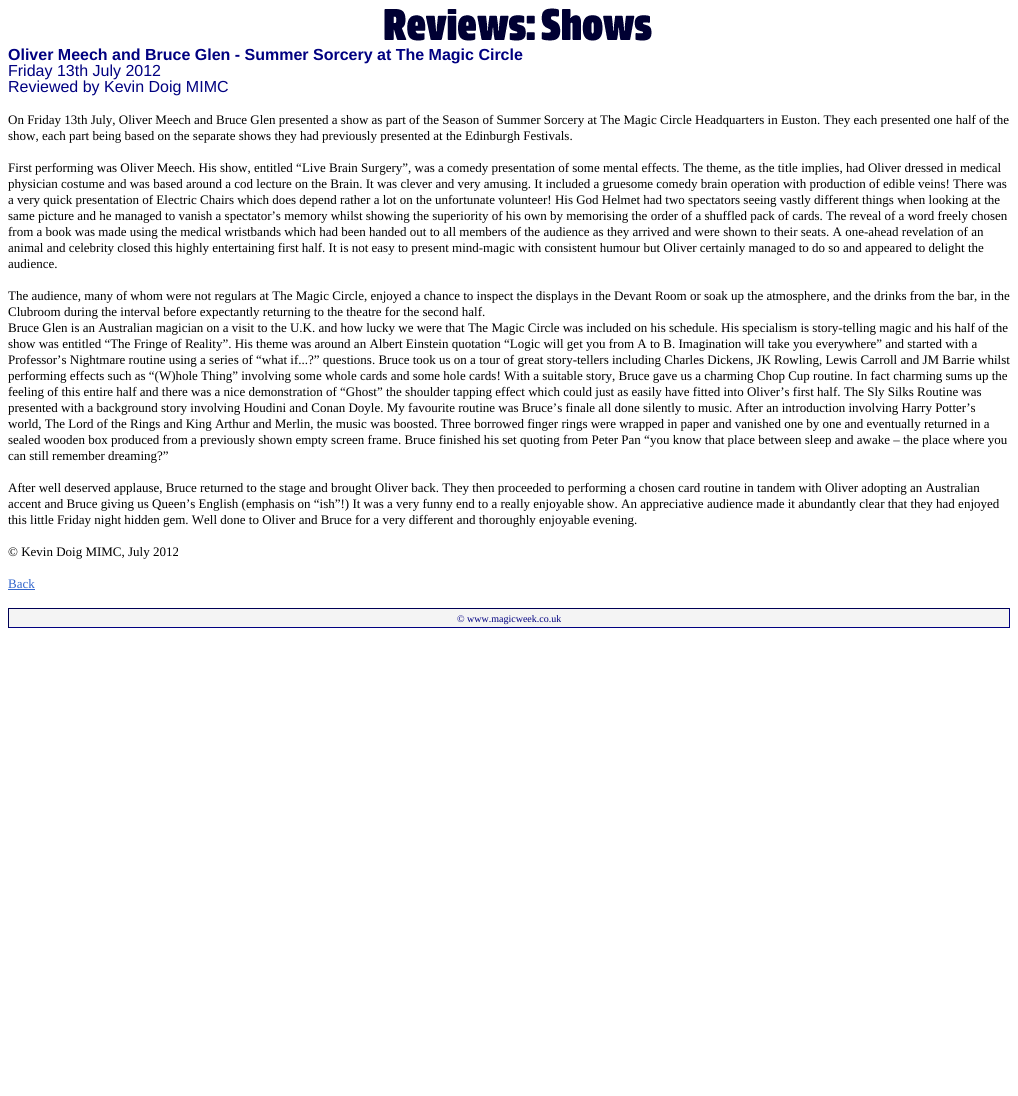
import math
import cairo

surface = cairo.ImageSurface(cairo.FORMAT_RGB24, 1018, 1096)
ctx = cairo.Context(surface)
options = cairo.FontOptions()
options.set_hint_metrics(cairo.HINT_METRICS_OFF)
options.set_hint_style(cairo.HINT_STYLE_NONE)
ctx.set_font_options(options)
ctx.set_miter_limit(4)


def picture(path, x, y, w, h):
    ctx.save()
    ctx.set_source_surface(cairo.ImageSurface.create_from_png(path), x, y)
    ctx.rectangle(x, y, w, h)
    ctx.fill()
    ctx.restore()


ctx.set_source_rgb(1, 1, 1)
ctx.paint()
picture("img1.png", 384, 8, 268, 33)
ctx.select_font_face("Liberation Sans", cairo.FONT_SLANT_NORMAL, cairo.FONT_WEIGHT_BOLD)
ctx.set_font_size(16)
ctx.set_source_rgb(0, 0, 0.502)
ctx.move_to(8, 60)
ctx.show_text("Oliver Meech and Bruce Glen - Summer Sorcery at The Magic Circle")
ctx.select_font_face("Liberation Sans")
ctx.move_to(8, 76)
ctx.show_text("Friday 13th July 2012")
ctx.move_to(8, 92)
ctx.show_text("Reviewed by Kevin Doig MIMC")
ctx.select_font_face("Liberation Serif")
ctx.set_font_size(13)
ctx.set_source_rgb(0, 0, 0)
ctx.move_to(8, 124)
ctx.show_text("On Friday 13th July, Oliver Meech and Bruce Glen presented a show as part of the Season of Summer Sorcery at The Magic Circle Headquarters in Euston. They each presented one half of the")
ctx.move_to(8, 140)
ctx.show_text("show, each part being based on the separate shows they had previously presented at the Edinburgh Festivals.")
ctx.move_to(8, 172)
ctx.show_text("First performing was Oliver Meech. His show, entitled “Live Brain Surgery”, was a comedy presentation of some mental effects. The theme, as the title implies, had Oliver dressed in medical")
ctx.move_to(8, 188)
ctx.show_text("physician costume and was based around a cod lecture on the Brain. It was clever and very amusing. It included a gruesome comedy brain operation with production of edible veins! There was")
ctx.move_to(8, 204)
ctx.show_text("a very quick presentation of Electric Chairs which does depend rather a lot on the unfortunate volunteer! His God Helmet had two spectators seeing vastly different things when looking at the")
ctx.move_to(8, 220)
ctx.show_text("same picture and he managed to vanish a spectator’s memory whilst showing the superiority of his own by memorising the order of a shuffled pack of cards. The reveal of a word freely chosen")
ctx.move_to(8, 236)
ctx.show_text("from a book was made using the medical wristbands which had been handed out to all members of the audience as they arrived and were shown to their seats. A one-ahead revelation of an")
ctx.move_to(8, 252)
ctx.show_text("animal and celebrity closed this highly entertaining first half. It is not easy to present mind-magic with consistent humour but Oliver certainly managed to do so and appeared to delight the")
ctx.move_to(8, 268)
ctx.show_text("audience.")
ctx.move_to(8, 300)
ctx.show_text("The audience, many of whom were not regulars at The Magic Circle, enjoyed a chance to inspect the displays in the Devant Room or soak up the atmosphere, and the drinks from the bar, in the")
ctx.move_to(8, 316)
ctx.show_text("Clubroom during the interval before expectantly returning to the theatre for the second half.")
ctx.move_to(8, 332)
ctx.show_text("Bruce Glen is an Australian magician on a visit to the U.K. and how lucky we were that The Magic Circle was included on his schedule. His specialism is story-telling magic and his half of the")
ctx.move_to(8, 348)
ctx.show_text("show was entitled “The Fringe of Reality”. His theme was around an Albert Einstein quotation “Logic will get you from A to B. Imagination will take you everywhere” and started with a")
ctx.move_to(8, 364)
ctx.show_text("Professor’s Nightmare routine using a series of “what if...?” questions. Bruce took us on a tour of great story-tellers including Charles Dickens, JK Rowling, Lewis Carroll and JM Barrie whilst")
ctx.move_to(8, 380)
ctx.show_text("performing effects such as “(W)hole Thing” involving some whole cards and some hole cards! With a suitable story, Bruce gave us a charming Chop Cup routine. In fact charming sums up the")
ctx.move_to(8, 396)
ctx.show_text("feeling of this entire half and there was a nice demonstration of “Ghost” the shoulder tapping effect which could just as easily have fitted into Oliver’s first half. The Sly Silks Routine was")
ctx.move_to(8, 412)
ctx.show_text("presented with a background story involving Houdini and Conan Doyle. My favourite routine was Bruce’s finale all done silently to music. After an introduction involving Harry Potter’s")
ctx.move_to(8, 428)
ctx.show_text("world, The Lord of the Rings and King Arthur and Merlin, the music was boosted. Three borrowed finger rings were wrapped in paper and vanished one by one and eventually returned in a")
ctx.move_to(8, 444)
ctx.show_text("sealed wooden box produced from a previously shown empty screen frame. Bruce finished his set quoting from Peter Pan “you know that place between sleep and awake – the place where you")
ctx.move_to(8, 460)
ctx.show_text("can still remember dreaming?”")
ctx.move_to(8, 492)
ctx.show_text("After well deserved applause, Bruce returned to the stage and brought Oliver back. They then proceeded to performing a chosen card routine in tandem with Oliver adopting an Australian")
ctx.move_to(8, 508)
ctx.show_text("accent and Bruce giving us Queen’s English (emphasis on “ish”!) It was a very funny end to a really enjoyable show. An appreciative audience made it abundantly clear that they had enjoyed")
ctx.move_to(8, 524)
ctx.show_text("this little Friday night hidden gem. Well done to Oliver and Bruce for a very different and thoroughly enjoyable evening.")
ctx.move_to(8, 556)
ctx.show_text("© Kevin Doig MIMC, July 2012")
ctx.set_source_rgb(0.2, 0.4, 0.8)
ctx.move_to(8, 588)
ctx.show_text("Back")
ctx.rectangle(8, 589, 27, 1)
ctx.fill()
ctx.set_source_rgb(0.957, 0.957, 0.957)
ctx.rectangle(9, 609, 1000, 18)
ctx.fill()
ctx.set_source_rgb(0, 0, 0.333)
ctx.rectangle(8, 608, 1002, 1)
ctx.fill()
ctx.set_source_rgb(0, 0, 0.502)
ctx.rectangle(1009, 608, 1, 20)
ctx.fill()
ctx.rectangle(8, 627, 1002, 1)
ctx.fill()
ctx.set_source_rgb(0, 0, 0.333)
ctx.rectangle(8, 608, 1, 20)
ctx.fill()
ctx.set_font_size(10)
ctx.set_source_rgb(0, 0, 0.502)
ctx.move_to(457, 622)
ctx.show_text("© www.magicweek.co.uk")
surface.write_to_png("page.png")
